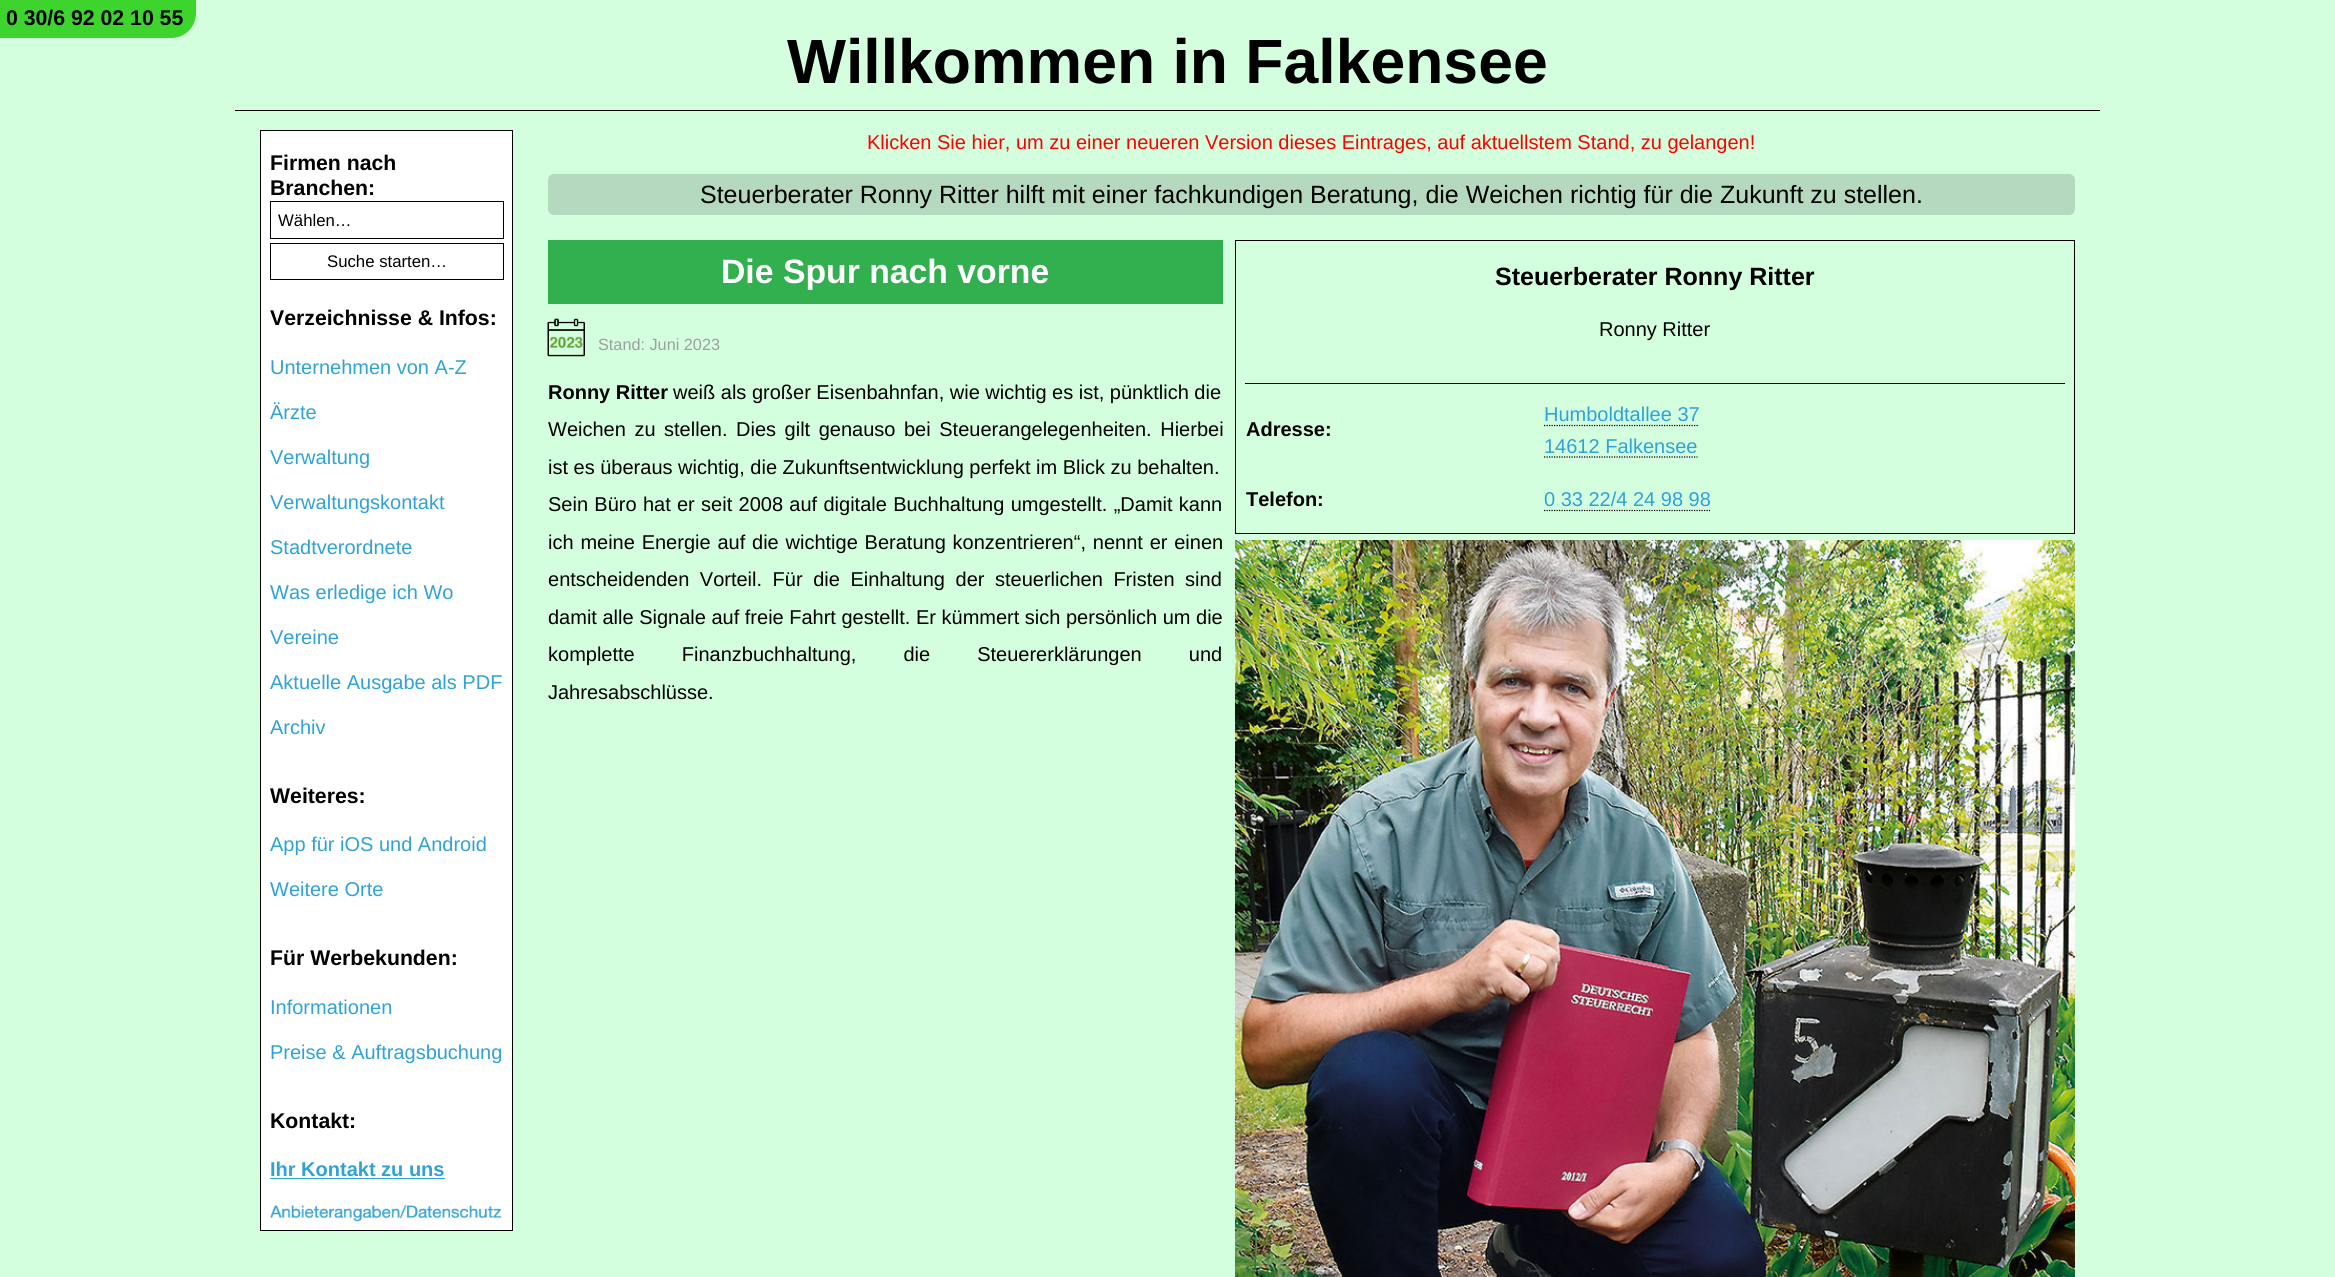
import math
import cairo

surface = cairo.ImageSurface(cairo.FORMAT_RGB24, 2335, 1277)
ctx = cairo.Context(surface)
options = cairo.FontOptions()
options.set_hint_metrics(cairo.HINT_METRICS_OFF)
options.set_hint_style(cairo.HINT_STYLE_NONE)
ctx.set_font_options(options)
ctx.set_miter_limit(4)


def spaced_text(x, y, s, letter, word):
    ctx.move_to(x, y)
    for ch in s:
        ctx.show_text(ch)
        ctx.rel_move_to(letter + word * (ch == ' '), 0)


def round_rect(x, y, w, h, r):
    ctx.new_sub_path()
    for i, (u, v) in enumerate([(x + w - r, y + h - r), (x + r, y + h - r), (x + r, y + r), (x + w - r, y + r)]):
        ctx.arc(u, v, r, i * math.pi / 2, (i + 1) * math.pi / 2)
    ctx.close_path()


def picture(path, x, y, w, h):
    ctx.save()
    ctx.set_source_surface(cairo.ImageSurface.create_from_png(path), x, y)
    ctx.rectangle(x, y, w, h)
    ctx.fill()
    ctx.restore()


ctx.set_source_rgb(0.831, 1, 0.875)
ctx.paint()
ctx.set_source_rgb(0.243, 0.831, 0.18)
ctx.new_path()
ctx.move_to(0, 0)
ctx.line_to(196, 0)
ctx.line_to(196, 13)
ctx.curve_to(196, 27, 185, 38, 171, 38)
ctx.line_to(0, 38)
ctx.close_path()
ctx.fill()
ctx.select_font_face("Liberation Sans", cairo.FONT_SLANT_NORMAL, cairo.FONT_WEIGHT_BOLD)
ctx.set_font_size(21.25)
ctx.set_source_rgb(0, 0, 0)
ctx.move_to(6, 25)
ctx.show_text("0 30/6 92 02 10 55")
ctx.rectangle(235, 110, 1865, 1)
ctx.fill()
ctx.set_font_size(62.5)
ctx.move_to(787, 83)
ctx.show_text("Willkommen in Falkensee")
ctx.set_source_rgb(1, 1, 1)
ctx.rectangle(260.5, 130.5, 252, 1100)
ctx.fill_preserve()
ctx.set_source_rgb(0, 0, 0)
ctx.set_line_width(1)
ctx.stroke()
ctx.set_font_size(21.25)
ctx.move_to(270, 170)
ctx.show_text("Firmen nach")
ctx.move_to(270, 195)
ctx.show_text("Branchen:")
ctx.rectangle(270.5, 201.5, 233, 37)
ctx.stroke()
ctx.select_font_face("Liberation Sans")
ctx.set_font_size(16.75)
ctx.move_to(278, 226)
ctx.show_text("Wählen…")
ctx.rectangle(270.5, 243.5, 233, 36)
ctx.stroke()
ctx.move_to(327, 267)
ctx.show_text("Suche starten…")
ctx.select_font_face("Liberation Sans", cairo.FONT_SLANT_NORMAL, cairo.FONT_WEIGHT_BOLD)
ctx.set_font_size(21.25)
ctx.move_to(270, 325)
ctx.show_text("Verzeichnisse & Infos:")
ctx.select_font_face("Liberation Sans")
ctx.set_font_size(20)
ctx.set_source_rgb(0.184, 0.635, 0.843)
ctx.move_to(270, 374)
ctx.show_text("Unternehmen von A-Z")
ctx.move_to(270, 419)
ctx.show_text("Ärzte")
ctx.move_to(270, 464)
ctx.show_text("Verwaltung")
ctx.move_to(270, 509)
ctx.show_text("Verwaltungskontakt")
ctx.move_to(270, 554)
ctx.show_text("Stadtverordnete")
ctx.move_to(270, 599)
ctx.show_text("Was erledige ich Wo")
ctx.move_to(270, 644)
ctx.show_text("Vereine")
ctx.move_to(270, 689)
ctx.show_text("Aktuelle Ausgabe als PDF")
ctx.move_to(270, 734)
ctx.show_text("Archiv")
ctx.select_font_face("Liberation Sans", cairo.FONT_SLANT_NORMAL, cairo.FONT_WEIGHT_BOLD)
ctx.set_font_size(21.25)
ctx.set_source_rgb(0, 0, 0)
ctx.move_to(270, 803)
ctx.show_text("Weiteres:")
ctx.select_font_face("Liberation Sans")
ctx.set_font_size(20)
ctx.set_source_rgb(0.184, 0.635, 0.843)
ctx.move_to(270, 851)
ctx.show_text("App für iOS und Android")
ctx.move_to(270, 896)
ctx.show_text("Weitere Orte")
ctx.select_font_face("Liberation Sans", cairo.FONT_SLANT_NORMAL, cairo.FONT_WEIGHT_BOLD)
ctx.set_font_size(21.25)
ctx.set_source_rgb(0, 0, 0)
ctx.move_to(270, 965)
ctx.show_text("Für Werbekunden:")
ctx.select_font_face("Liberation Sans")
ctx.set_font_size(20)
ctx.set_source_rgb(0.184, 0.635, 0.843)
ctx.move_to(270, 1014)
ctx.show_text("Informationen")
ctx.move_to(270, 1059)
ctx.show_text("Preise & Auftragsbuchung")
ctx.select_font_face("Liberation Sans", cairo.FONT_SLANT_NORMAL, cairo.FONT_WEIGHT_BOLD)
ctx.set_font_size(21.25)
ctx.set_source_rgb(0, 0, 0)
ctx.move_to(270, 1128)
ctx.show_text("Kontakt:")
ctx.set_font_size(20)
ctx.set_source_rgb(0.184, 0.635, 0.843)
ctx.move_to(270, 1176)
ctx.show_text("Ihr Kontakt zu uns")
ctx.rectangle(270, 1178, 175, 1)
ctx.fill()
picture("img1.png", 270, 1205, 232, 17)
ctx.select_font_face("Liberation Sans")
ctx.set_source_rgb(1, 0, 0)
ctx.move_to(867, 149)
ctx.show_text("Klicken Sie hier, um zu einer neueren Version dieses Eintrages, auf aktuellstem Stand, zu gelangen!")
ctx.set_source_rgb(0.706, 0.851, 0.745)
round_rect(548, 174, 1527, 41, 6)
ctx.fill()
ctx.set_font_size(25)
ctx.set_source_rgb(0, 0, 0)
ctx.move_to(700, 203)
ctx.show_text("Steuerberater Ronny Ritter hilft mit einer fachkundigen Beratung, die Weichen richtig für die Zukunft zu stellen.")
picture("img2.png", 547, 318, 38, 39)
ctx.set_font_size(16.25)
ctx.set_source_rgb(0.62, 0.62, 0.62)
ctx.move_to(598, 350)
ctx.show_text("Stand: Juni 2023")
ctx.set_source_rgb(0.196, 0.686, 0.31)
ctx.rectangle(548, 240, 675, 64)
ctx.fill()
ctx.select_font_face("Liberation Sans", cairo.FONT_SLANT_NORMAL, cairo.FONT_WEIGHT_BOLD)
ctx.set_font_size(33.75)
ctx.set_source_rgb(1, 1, 1)
ctx.move_to(721, 283)
ctx.show_text("Die Spur nach vorne")
ctx.rectangle(1235.5, 240.5, 839, 293)
ctx.set_source_rgb(0, 0, 0)
ctx.stroke()
ctx.set_font_size(25)
ctx.move_to(1495, 285)
ctx.show_text("Steuerberater Ronny Ritter")
ctx.select_font_face("Liberation Sans")
ctx.set_font_size(20)
ctx.move_to(1599, 336)
ctx.show_text("Ronny Ritter")
ctx.rectangle(1245, 383, 820, 1)
ctx.fill()
ctx.select_font_face("Liberation Sans", cairo.FONT_SLANT_NORMAL, cairo.FONT_WEIGHT_BOLD)
ctx.move_to(1246, 436)
ctx.show_text("Adresse:")
ctx.select_font_face("Liberation Sans")
ctx.set_source_rgb(0.184, 0.635, 0.843)
ctx.move_to(1544, 421)
ctx.show_text("Humboldtallee 37")
ctx.new_path()
ctx.move_to(1544, 425.5)
ctx.line_to(1699, 425.5)
ctx.set_source_rgb(0, 0, 0)
ctx.set_line_width(1.2)
ctx.set_dash([1.25, 1.25])
ctx.stroke()
ctx.set_source_rgb(0.184, 0.635, 0.843)
ctx.move_to(1544, 453)
ctx.show_text("14612 Falkensee")
ctx.new_path()
ctx.move_to(1544, 457)
ctx.line_to(1697.5, 457)
ctx.set_source_rgb(0, 0, 0)
ctx.stroke()
ctx.select_font_face("Liberation Sans", cairo.FONT_SLANT_NORMAL, cairo.FONT_WEIGHT_BOLD)
ctx.move_to(1246, 506)
ctx.show_text("Telefon:")
ctx.select_font_face("Liberation Sans")
ctx.set_source_rgb(0.184, 0.635, 0.843)
ctx.move_to(1544, 506)
ctx.show_text("0 33 22/4 24 98 98")
ctx.new_path()
ctx.move_to(1544, 510.5)
ctx.line_to(1710, 510.5)
ctx.set_source_rgb(0, 0, 0)
ctx.stroke()
picture("img3.png", 1235, 540, 840, 737)
ctx.select_font_face("Liberation Sans", cairo.FONT_SLANT_NORMAL, cairo.FONT_WEIGHT_BOLD)
ctx.move_to(548, 399)
ctx.show_text("Ronny Ritter")
ctx.select_font_face("Liberation Sans")
ctx.move_to(673, 399)
ctx.show_text("weiß als großer Eisenbahnfan, wie wichtig es ist, pünktlich die")
spaced_text(548, 436, "Weichen zu stellen. Dies gilt genauso bei Steuerangelegenheiten. Hierbei", 0, 3)
ctx.move_to(548, 474)
ctx.show_text("ist es überaus wichtig, die Zukunftsentwicklung perfekt im Blick zu behalten.")
spaced_text(548, 511, "Sein Büro hat er seit 2008 auf digitale Buchhaltung umgestellt. „Damit kann", 0, 0.75)
spaced_text(548, 549, "ich meine Energie auf die wichtige Beratung konzentrieren“, nennt er einen", 0, 1.25)
spaced_text(548, 586, "entscheidenden Vorteil. Für die Einhaltung der steuerlichen Fristen sind", 0, 5)
ctx.move_to(548, 624)
ctx.show_text("damit alle Signale auf freie Fahrt gestellt. Er kümmert sich persönlich um die")
spaced_text(548, 661, "komplette Finanzbuchhaltung, die Steuererklärungen und", 0, 41.5)
ctx.move_to(548, 699)
ctx.show_text("Jahresabschlüsse.")
surface.write_to_png("page.png")
